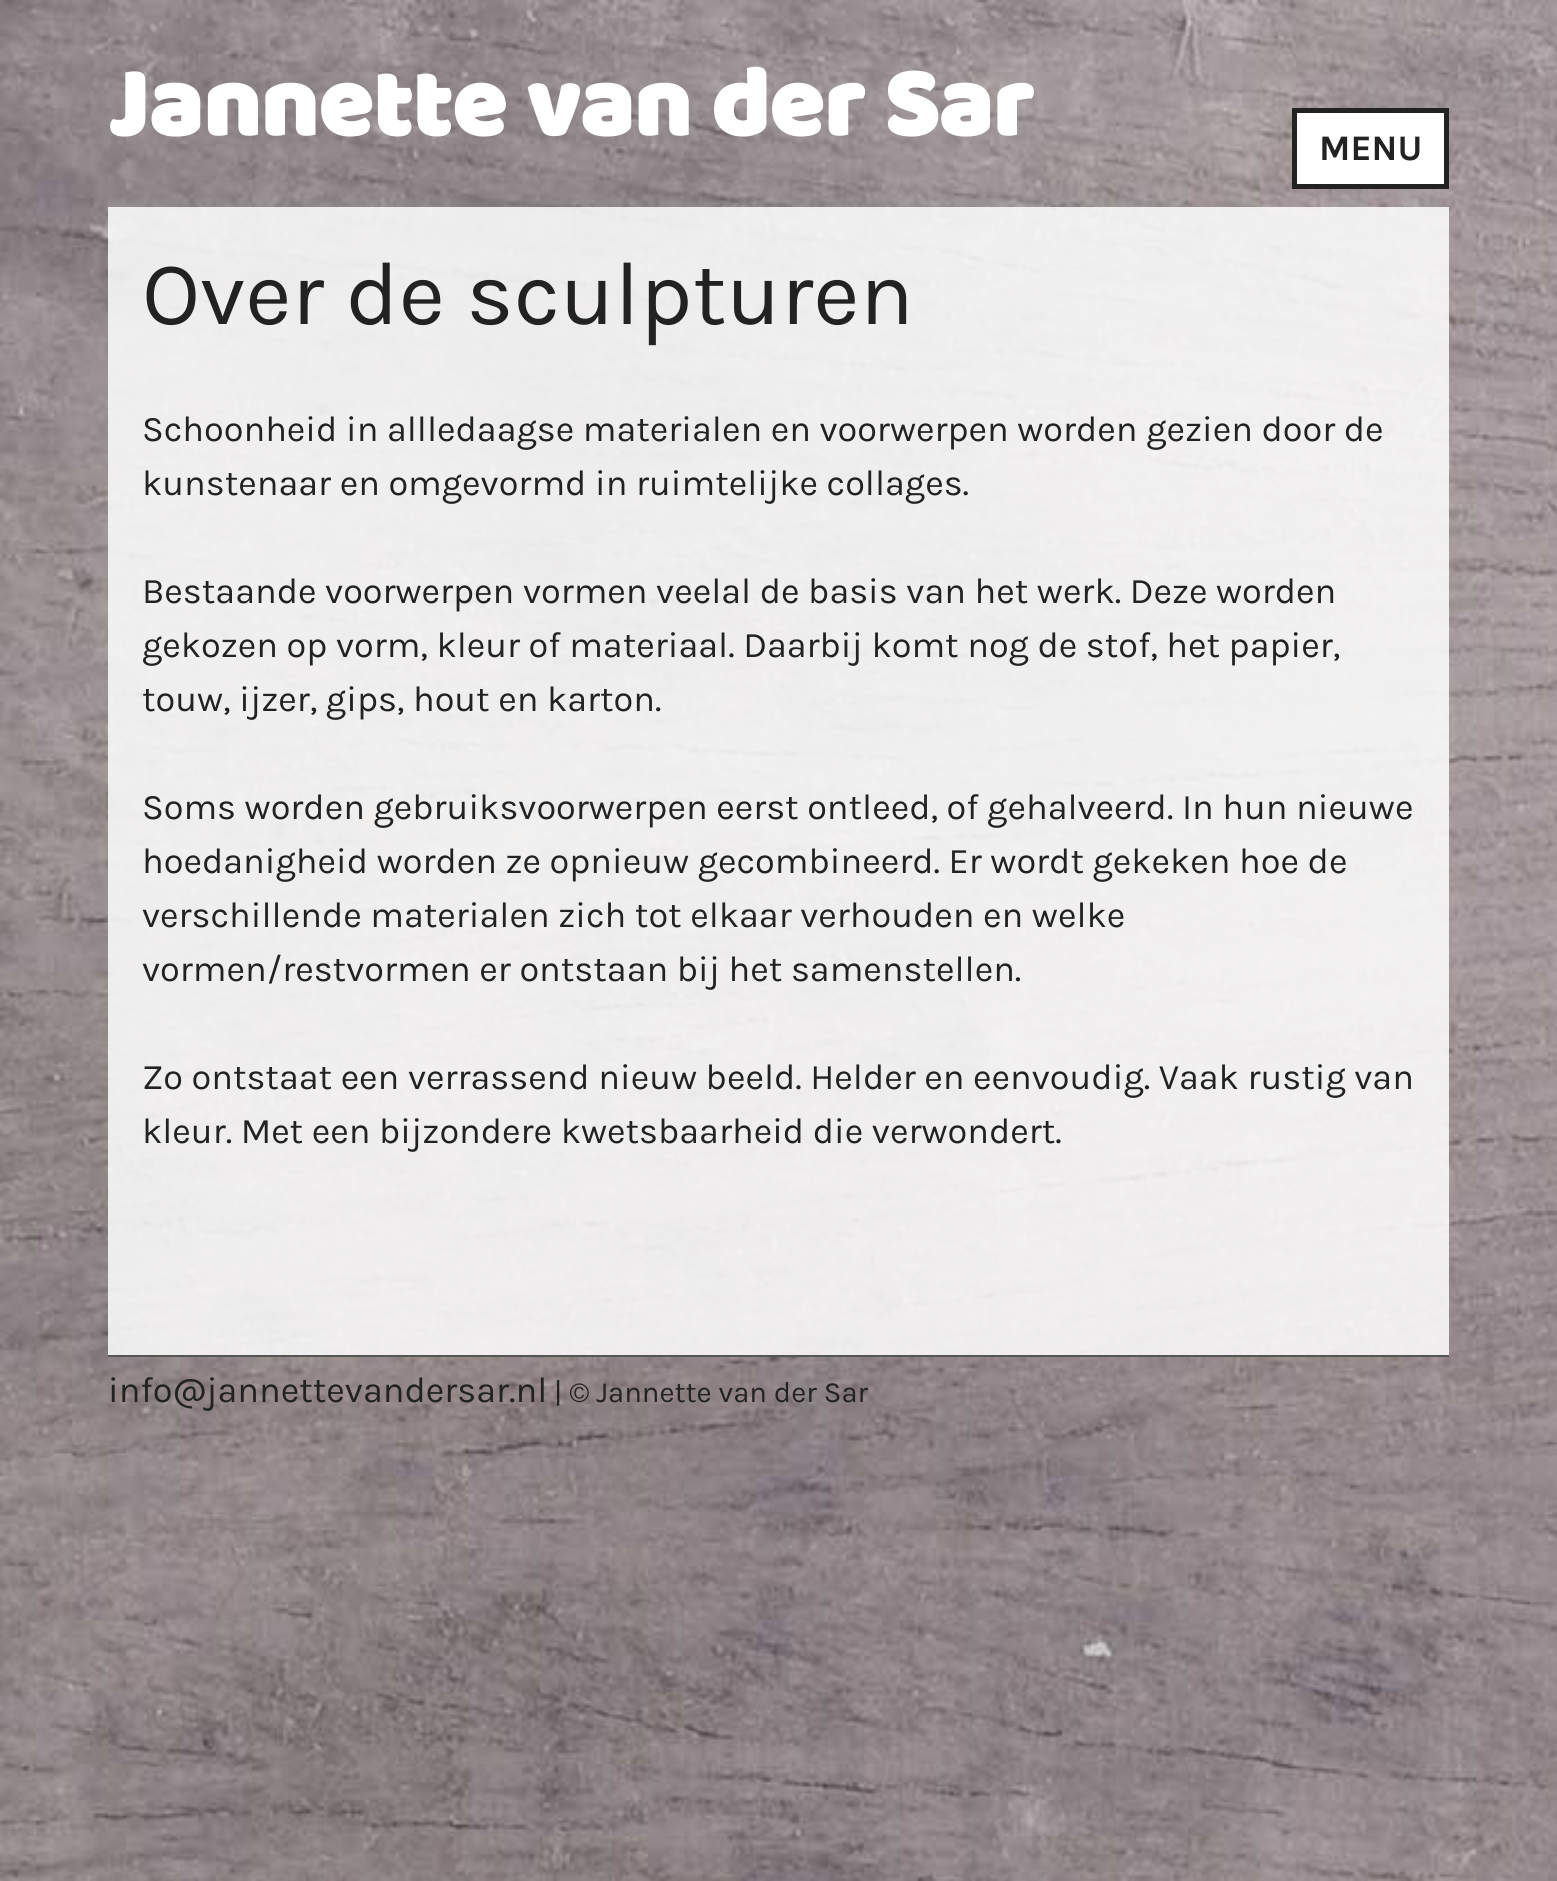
import math
import cairo

surface = cairo.ImageSurface(cairo.FORMAT_RGB24, 1557, 1881)
ctx = cairo.Context(surface)
options = cairo.FontOptions()
options.set_hint_metrics(cairo.HINT_METRICS_OFF)
options.set_hint_style(cairo.HINT_STYLE_NONE)
ctx.set_font_options(options)
ctx.set_miter_limit(4)


def picture(path, x, y, w, h):
    ctx.save()
    ctx.set_source_surface(cairo.ImageSurface.create_from_png(path), x, y)
    ctx.rectangle(x, y, w, h)
    ctx.fill()
    ctx.restore()


ctx.set_source_rgb(1, 1, 1)
ctx.paint()
picture("img1.png", 0, 0, 1557, 1881)
ctx.select_font_face("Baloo", cairo.FONT_SLANT_NORMAL, cairo.FONT_WEIGHT_BOLD)
ctx.set_font_size(99)
ctx.set_source_rgb(1, 1, 1)
ctx.move_to(108, 135)
ctx.show_text("Jannette van der Sar")
ctx.rectangle(1294.5, 110.5, 152, 76)
ctx.fill_preserve()
ctx.set_source_rgb(0.133, 0.133, 0.133)
ctx.set_line_width(5)
ctx.stroke()
ctx.select_font_face("Karla", cairo.FONT_SLANT_NORMAL, cairo.FONT_WEIGHT_BOLD)
ctx.set_font_size(36)
ctx.move_to(1319, 160)
ctx.show_text("MENU")
ctx.set_source_rgba(1, 1, 1, 0.85)
ctx.rectangle(108, 207, 1341, 1148)
ctx.fill()
ctx.select_font_face("Karla")
ctx.set_font_size(90)
ctx.set_source_rgb(0.133, 0.133, 0.133)
ctx.move_to(142, 324)
ctx.show_text("Over de sculpturen")
ctx.set_font_size(36)
ctx.move_to(142, 441)
ctx.show_text("Schoonheid in allledaagse materialen en voorwerpen worden gezien door de")
ctx.move_to(142, 495)
ctx.show_text("kunstenaar en omgevormd in ruimtelijke collages.")
ctx.move_to(142, 603)
ctx.show_text("Bestaande voorwerpen vormen veelal de basis van het werk. Deze worden")
ctx.move_to(142, 657)
ctx.show_text("gekozen op vorm, kleur of materiaal. Daarbij komt nog de stof, het papier,")
ctx.move_to(142, 711)
ctx.show_text("touw, ijzer, gips, hout en karton.")
ctx.move_to(142, 819)
ctx.show_text("Soms worden gebruiksvoorwerpen eerst ontleed, of gehalveerd. In hun nieuwe")
ctx.move_to(142, 873)
ctx.show_text("hoedanigheid worden ze opnieuw gecombineerd. Er wordt gekeken hoe de")
ctx.move_to(142, 927)
ctx.show_text("verschillende materialen zich tot elkaar verhouden en welke")
ctx.move_to(142, 981)
ctx.show_text("vormen/restvormen er ontstaan bij het samenstellen.")
ctx.move_to(142, 1089)
ctx.show_text("Zo ontstaat een verrassend nieuw beeld. Helder en eenvoudig. Vaak rustig van")
ctx.move_to(142, 1143)
ctx.show_text("kleur. Met een bijzondere kwetsbaarheid die verwondert.")
ctx.set_source_rgb(0.333, 0.333, 0.333)
ctx.rectangle(108, 1355, 1341, 2)
ctx.fill()
ctx.set_source_rgb(0.133, 0.133, 0.133)
ctx.move_to(108, 1402)
ctx.show_text("info@jannettevandersar.nl")
ctx.set_font_size(29.25)
ctx.move_to(554, 1402)
ctx.show_text("| © Jannette van der Sar")
surface.write_to_png("page.png")
